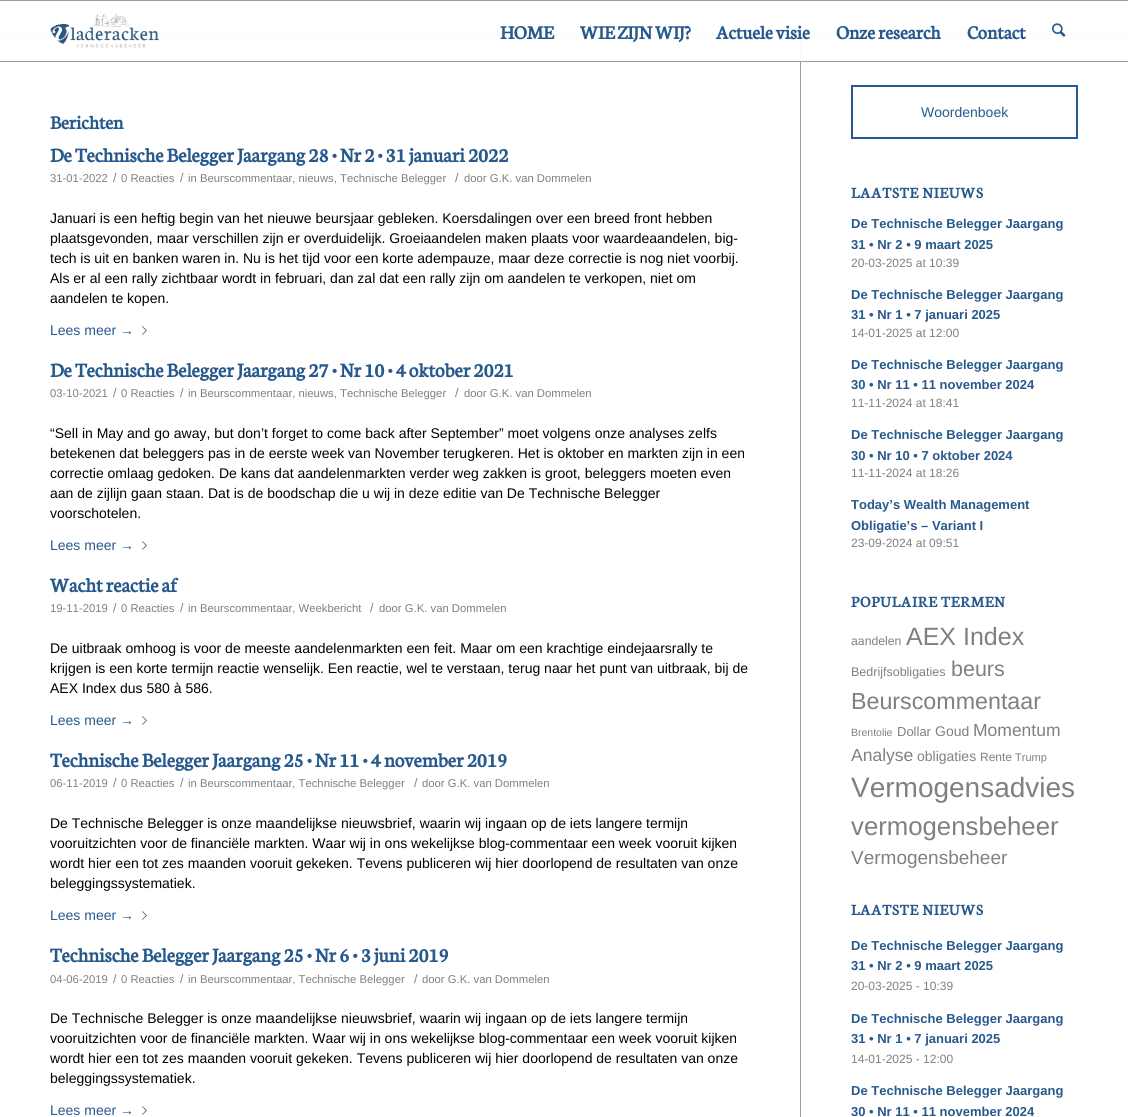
import math
import cairo

surface = cairo.ImageSurface(cairo.FORMAT_RGB24, 1128, 1117)
ctx = cairo.Context(surface)
options = cairo.FontOptions()
options.set_hint_metrics(cairo.HINT_METRICS_OFF)
options.set_hint_style(cairo.HINT_STYLE_NONE)
ctx.set_font_options(options)
ctx.set_miter_limit(4)


def spaced_text(x, y, s, letter, word):
    ctx.move_to(x, y)
    for ch in s:
        ctx.show_text(ch)
        ctx.rel_move_to(letter + word * (ch == ' '), 0)


def picture(path, x, y, w, h):
    ctx.save()
    ctx.set_source_surface(cairo.ImageSurface.create_from_png(path), x, y)
    ctx.rectangle(x, y, w, h)
    ctx.fill()
    ctx.restore()


ctx.set_source_rgb(1, 1, 1)
ctx.paint()
ctx.set_source_rgb(0.616, 0.616, 0.624)
ctx.rectangle(0, 0, 1128, 1)
ctx.fill()
ctx.set_source_rgb(0.98, 0.98, 0.98)
ctx.rectangle(800, 35, 1, 27)
ctx.fill()
ctx.set_source_rgb(0.616, 0.616, 0.624)
ctx.rectangle(0, 61, 1128, 1)
ctx.fill()
ctx.set_source_rgb(0.98, 0.98, 0.98)
ctx.rectangle(0, 34, 1128, 1)
ctx.fill()
picture("img1.png", 50, 1, 110, 47)
ctx.select_font_face("Neuton", cairo.FONT_SLANT_NORMAL, cairo.FONT_WEIGHT_BOLD)
ctx.set_font_size(20)
ctx.set_source_rgb(0.153, 0.349, 0.553)
ctx.move_to(500, 39)
ctx.show_text("HOME")
ctx.move_to(580, 39)
ctx.show_text("WIE ZIJN WIJ?")
ctx.move_to(716, 39)
ctx.show_text("Actuele visie")
ctx.move_to(836, 39)
ctx.show_text("Onze research")
ctx.move_to(967, 39)
ctx.show_text("Contact")
picture("img2.png", 1052, 23, 14, 14)
ctx.move_to(50, 129)
ctx.show_text("Berichten")
ctx.set_font_size(21)
ctx.move_to(50, 162)
ctx.show_text("De Technische Belegger Jaargang 28 • Nr 2 • 31 januari 2022")
ctx.select_font_face("Liberation Sans")
ctx.set_font_size(11.3)
ctx.set_source_rgb(0.502, 0.502, 0.502)
ctx.move_to(50, 182)
ctx.show_text("31-01-2022")
ctx.set_font_size(12.5)
ctx.move_to(113, 182)
ctx.show_text("/")
ctx.set_font_size(11.3)
ctx.move_to(121, 182)
ctx.show_text("0 Reacties")
ctx.set_font_size(12.5)
ctx.move_to(180, 182)
ctx.show_text("/")
ctx.set_font_size(11.3)
ctx.move_to(188, 182)
ctx.show_text("in Beurscommentaar, nieuws, Technische Belegger")
ctx.set_font_size(12.5)
ctx.move_to(455, 182)
ctx.show_text("/")
ctx.set_font_size(11.3)
ctx.move_to(464, 182)
ctx.show_text("door G.K. van Dommelen")
ctx.set_font_size(14)
ctx.set_source_rgb(0, 0, 0)
ctx.move_to(50, 223)
ctx.show_text("Januari is een heftig begin van het nieuwe beursjaar gebleken. Koersdalingen over een breed front hebben")
ctx.move_to(50, 243)
ctx.show_text("plaatsgevonden, maar verschillen zijn er overduidelijk. Groeiaandelen maken plaats voor waardeaandelen, big-")
ctx.move_to(50, 263)
ctx.show_text("tech is uit en banken waren in. Nu is het tijd voor een korte adempauze, maar deze correctie is nog niet voorbij.")
ctx.move_to(50, 283)
ctx.show_text("Als er al een rally zichtbaar wordt in februari, dan zal dat een rally zijn om aandelen te verkopen, niet om")
ctx.move_to(50, 303)
ctx.show_text("aandelen te kopen.")
ctx.set_source_rgb(0.153, 0.349, 0.553)
ctx.move_to(50, 335)
ctx.show_text("Lees meer →")
picture("img3.png", 142, 326, 5, 9)
ctx.select_font_face("Neuton", cairo.FONT_SLANT_NORMAL, cairo.FONT_WEIGHT_BOLD)
ctx.set_font_size(21)
ctx.move_to(50, 377)
ctx.show_text("De Technische Belegger Jaargang 27 • Nr 10 • 4 oktober 2021")
ctx.select_font_face("Liberation Sans")
ctx.set_font_size(11.3)
ctx.set_source_rgb(0.502, 0.502, 0.502)
ctx.move_to(50, 397)
ctx.show_text("03-10-2021")
ctx.set_font_size(12.5)
ctx.move_to(113, 397)
ctx.show_text("/")
ctx.set_font_size(11.3)
ctx.move_to(121, 397)
ctx.show_text("0 Reacties")
ctx.set_font_size(12.5)
ctx.move_to(180, 397)
ctx.show_text("/")
ctx.set_font_size(11.3)
ctx.move_to(188, 397)
ctx.show_text("in Beurscommentaar, nieuws, Technische Belegger")
ctx.set_font_size(12.5)
ctx.move_to(455, 397)
ctx.show_text("/")
ctx.set_font_size(11.3)
ctx.move_to(464, 397)
ctx.show_text("door G.K. van Dommelen")
ctx.set_font_size(14)
ctx.set_source_rgb(0, 0, 0)
ctx.move_to(50, 438)
ctx.show_text("“Sell in May and go away, but don’t forget to come back after September” moet volgens onze analyses zelfs")
ctx.move_to(50, 458)
ctx.show_text("betekenen dat beleggers pas in de eerste week van November terugkeren. Het is oktober en markten zijn in een")
ctx.move_to(50, 478)
ctx.show_text("correctie omlaag gedoken. De kans dat aandelenmarkten verder weg zakken is groot, beleggers moeten even")
ctx.move_to(50, 498)
ctx.show_text("aan de zijlijn gaan staan. Dat is de boodschap die u wij in deze editie van De Technische Belegger")
ctx.move_to(50, 518)
ctx.show_text("voorschotelen.")
ctx.set_source_rgb(0.153, 0.349, 0.553)
ctx.move_to(50, 550)
ctx.show_text("Lees meer →")
picture("img3.png", 142, 541, 5, 9)
ctx.select_font_face("Neuton", cairo.FONT_SLANT_NORMAL, cairo.FONT_WEIGHT_BOLD)
ctx.set_font_size(21)
ctx.move_to(50, 592)
ctx.show_text("Wacht reactie af")
ctx.select_font_face("Liberation Sans")
ctx.set_font_size(11.3)
ctx.set_source_rgb(0.502, 0.502, 0.502)
ctx.move_to(50, 612)
ctx.show_text("19-11-2019")
ctx.set_font_size(12.5)
ctx.move_to(113, 612)
ctx.show_text("/")
ctx.set_font_size(11.3)
ctx.move_to(121, 612)
ctx.show_text("0 Reacties")
ctx.set_font_size(12.5)
ctx.move_to(180, 612)
ctx.show_text("/")
ctx.set_font_size(11.3)
ctx.move_to(188, 612)
ctx.show_text("in Beurscommentaar, Weekbericht")
ctx.set_font_size(12.5)
ctx.move_to(370, 612)
ctx.show_text("/")
ctx.set_font_size(11.3)
ctx.move_to(379, 612)
ctx.show_text("door G.K. van Dommelen")
ctx.set_font_size(14)
ctx.set_source_rgb(0, 0, 0)
ctx.move_to(50, 653)
ctx.show_text("De uitbraak omhoog is voor de meeste aandelenmarkten een feit. Maar om een krachtige eindejaarsrally te")
ctx.move_to(50, 673)
ctx.show_text("krijgen is een korte termijn reactie wenselijk. Een reactie, wel te verstaan, terug naar het punt van uitbraak, bij de")
ctx.move_to(50, 693)
ctx.show_text("AEX Index dus 580 à 586.")
ctx.set_source_rgb(0.153, 0.349, 0.553)
ctx.move_to(50, 725)
ctx.show_text("Lees meer →")
picture("img3.png", 142, 716, 5, 9)
ctx.select_font_face("Neuton", cairo.FONT_SLANT_NORMAL, cairo.FONT_WEIGHT_BOLD)
ctx.set_font_size(21)
ctx.move_to(50, 767)
ctx.show_text("Technische Belegger Jaargang 25 • Nr 11 • 4 november 2019")
ctx.select_font_face("Liberation Sans")
ctx.set_font_size(11.3)
ctx.set_source_rgb(0.502, 0.502, 0.502)
ctx.move_to(50, 787)
ctx.show_text("06-11-2019")
ctx.set_font_size(12.5)
ctx.move_to(113, 787)
ctx.show_text("/")
ctx.set_font_size(11.3)
ctx.move_to(121, 787)
ctx.show_text("0 Reacties")
ctx.set_font_size(12.5)
ctx.move_to(180, 787)
ctx.show_text("/")
ctx.set_font_size(11.3)
ctx.move_to(188, 787)
ctx.show_text("in Beurscommentaar, Technische Belegger")
ctx.set_font_size(12.5)
ctx.move_to(414, 787)
ctx.show_text("/")
ctx.set_font_size(11.3)
ctx.move_to(422, 787)
ctx.show_text("door G.K. van Dommelen")
ctx.set_font_size(14)
ctx.set_source_rgb(0, 0, 0)
ctx.move_to(50, 828)
ctx.show_text("De Technische Belegger is onze maandelijkse nieuwsbrief, waarin wij ingaan op de iets langere termijn")
ctx.move_to(50, 848)
ctx.show_text("vooruitzichten voor de financiële markten. Waar wij in ons wekelijkse blog-commentaar een week vooruit kijken")
ctx.move_to(50, 868)
ctx.show_text("wordt hier een tot zes maanden vooruit gekeken. Tevens publiceren wij hier doorlopend de resultaten van onze")
ctx.move_to(50, 888)
ctx.show_text("beleggingssystematiek.")
ctx.set_source_rgb(0.153, 0.349, 0.553)
ctx.move_to(50, 920)
ctx.show_text("Lees meer →")
picture("img3.png", 142, 911, 5, 9)
ctx.select_font_face("Neuton", cairo.FONT_SLANT_NORMAL, cairo.FONT_WEIGHT_BOLD)
ctx.set_font_size(21)
ctx.move_to(50, 962)
ctx.show_text("Technische Belegger Jaargang 25 • Nr 6 • 3 juni 2019")
ctx.select_font_face("Liberation Sans")
ctx.set_font_size(11.3)
ctx.set_source_rgb(0.502, 0.502, 0.502)
ctx.move_to(50, 983)
ctx.show_text("04-06-2019")
ctx.set_font_size(12.5)
ctx.move_to(113, 983)
ctx.show_text("/")
ctx.set_font_size(11.3)
ctx.move_to(121, 983)
ctx.show_text("0 Reacties")
ctx.set_font_size(12.5)
ctx.move_to(180, 983)
ctx.show_text("/")
ctx.set_font_size(11.3)
ctx.move_to(188, 983)
ctx.show_text("in Beurscommentaar, Technische Belegger")
ctx.set_font_size(12.5)
ctx.move_to(414, 983)
ctx.show_text("/")
ctx.set_font_size(11.3)
ctx.move_to(422, 983)
ctx.show_text("door G.K. van Dommelen")
ctx.set_font_size(14)
ctx.set_source_rgb(0, 0, 0)
ctx.move_to(50, 1023)
ctx.show_text("De Technische Belegger is onze maandelijkse nieuwsbrief, waarin wij ingaan op de iets langere termijn")
ctx.move_to(50, 1043)
ctx.show_text("vooruitzichten voor de financiële markten. Waar wij in ons wekelijkse blog-commentaar een week vooruit kijken")
ctx.move_to(50, 1063)
ctx.show_text("wordt hier een tot zes maanden vooruit gekeken. Tevens publiceren wij hier doorlopend de resultaten van onze")
ctx.move_to(50, 1083)
ctx.show_text("beleggingssystematiek.")
ctx.set_source_rgb(0.153, 0.349, 0.553)
ctx.move_to(50, 1115)
ctx.show_text("Lees meer →")
picture("img3.png", 142, 1106, 5, 9)
ctx.set_source_rgb(0.616, 0.616, 0.624)
ctx.rectangle(800, 62, 1, 1055)
ctx.fill()
ctx.rectangle(852, 86, 225, 52)
ctx.set_source_rgb(0.153, 0.349, 0.553)
ctx.stroke()
ctx.move_to(921, 117)
ctx.show_text("Woordenboek")
ctx.select_font_face("Neuton", cairo.FONT_SLANT_NORMAL, cairo.FONT_WEIGHT_BOLD)
ctx.set_font_size(16)
spaced_text(851, 198, "LAATSTE NIEUWS", 1, 0)
ctx.select_font_face("Liberation Sans", cairo.FONT_SLANT_NORMAL, cairo.FONT_WEIGHT_BOLD)
ctx.set_font_size(13)
ctx.move_to(851, 228)
ctx.show_text("De Technische Belegger Jaargang")
ctx.move_to(851, 249)
ctx.show_text("31 • Nr 2 • 9 maart 2025")
ctx.select_font_face("Liberation Sans")
ctx.set_font_size(12)
ctx.set_source_rgb(0.502, 0.502, 0.502)
ctx.move_to(851, 267)
ctx.show_text("20-03-2025 at 10:39")
ctx.select_font_face("Liberation Sans", cairo.FONT_SLANT_NORMAL, cairo.FONT_WEIGHT_BOLD)
ctx.set_font_size(13)
ctx.set_source_rgb(0.153, 0.349, 0.553)
ctx.move_to(851, 299)
ctx.show_text("De Technische Belegger Jaargang")
ctx.move_to(851, 319)
ctx.show_text("31 • Nr 1 • 7 januari 2025")
ctx.select_font_face("Liberation Sans")
ctx.set_font_size(12)
ctx.set_source_rgb(0.502, 0.502, 0.502)
ctx.move_to(851, 337)
ctx.show_text("14-01-2025 at 12:00")
ctx.select_font_face("Liberation Sans", cairo.FONT_SLANT_NORMAL, cairo.FONT_WEIGHT_BOLD)
ctx.set_font_size(13)
ctx.set_source_rgb(0.153, 0.349, 0.553)
ctx.move_to(851, 369)
ctx.show_text("De Technische Belegger Jaargang")
ctx.move_to(851, 389)
ctx.show_text("30 • Nr 11 • 11 november 2024")
ctx.select_font_face("Liberation Sans")
ctx.set_font_size(12)
ctx.set_source_rgb(0.502, 0.502, 0.502)
ctx.move_to(851, 407)
ctx.show_text("11-11-2024 at 18:41")
ctx.select_font_face("Liberation Sans", cairo.FONT_SLANT_NORMAL, cairo.FONT_WEIGHT_BOLD)
ctx.set_font_size(13)
ctx.set_source_rgb(0.153, 0.349, 0.553)
ctx.move_to(851, 439)
ctx.show_text("De Technische Belegger Jaargang")
ctx.move_to(851, 460)
ctx.show_text("30 • Nr 10 • 7 oktober 2024")
ctx.select_font_face("Liberation Sans")
ctx.set_font_size(12)
ctx.set_source_rgb(0.502, 0.502, 0.502)
ctx.move_to(851, 477)
ctx.show_text("11-11-2024 at 18:26")
ctx.select_font_face("Liberation Sans", cairo.FONT_SLANT_NORMAL, cairo.FONT_WEIGHT_BOLD)
ctx.set_font_size(13)
ctx.set_source_rgb(0.153, 0.349, 0.553)
ctx.move_to(851, 509)
ctx.show_text("Today’s Wealth Management")
ctx.move_to(851, 530)
ctx.show_text("Obligatie’s – Variant I")
ctx.select_font_face("Liberation Sans")
ctx.set_font_size(12)
ctx.set_source_rgb(0.502, 0.502, 0.502)
ctx.move_to(851, 547)
ctx.show_text("23-09-2024 at 09:51")
ctx.select_font_face("Neuton", cairo.FONT_SLANT_NORMAL, cairo.FONT_WEIGHT_BOLD)
ctx.set_font_size(16)
ctx.set_source_rgb(0.153, 0.349, 0.553)
spaced_text(851, 607, "POPULAIRE TERMEN", 1, 0)
ctx.select_font_face("Liberation Sans")
ctx.set_font_size(12.25)
ctx.set_source_rgb(0.502, 0.502, 0.502)
ctx.move_to(851, 645)
ctx.show_text("aandelen")
ctx.set_font_size(25)
ctx.move_to(906, 645)
ctx.show_text("AEX Index")
ctx.set_font_size(12.5)
ctx.move_to(851, 676)
ctx.show_text("Bedrijfsobligaties")
ctx.set_font_size(21.5)
ctx.move_to(951, 676)
ctx.show_text("beurs")
ctx.set_font_size(23.25)
ctx.move_to(851, 709)
ctx.show_text("Beurscommentaar")
ctx.set_font_size(10.5)
ctx.move_to(851, 736)
ctx.show_text("Brentolie")
ctx.set_font_size(13)
ctx.move_to(897, 736)
ctx.show_text("Dollar")
ctx.set_font_size(14)
ctx.move_to(935, 736)
ctx.show_text("Goud")
ctx.set_font_size(17.5)
ctx.move_to(973, 736)
ctx.show_text("Momentum")
ctx.move_to(851, 761)
ctx.show_text("Analyse")
ctx.set_font_size(14)
ctx.move_to(917, 761)
ctx.show_text("obligaties")
ctx.set_font_size(12)
ctx.move_to(980, 761)
ctx.show_text("Rente")
ctx.set_font_size(11)
ctx.move_to(1015, 761)
ctx.show_text("Trump")
ctx.set_font_size(28)
ctx.move_to(851, 797)
ctx.show_text("Vermogensadvies")
ctx.set_font_size(25.75)
ctx.move_to(851, 835)
ctx.show_text("vermogensbeheer")
ctx.set_font_size(19)
ctx.move_to(851, 864)
ctx.show_text("Vermogensbeheer")
ctx.select_font_face("Neuton", cairo.FONT_SLANT_NORMAL, cairo.FONT_WEIGHT_BOLD)
ctx.set_font_size(16)
ctx.set_source_rgb(0.153, 0.349, 0.553)
spaced_text(851, 915, "LAATSTE NIEUWS", 1, 0)
ctx.select_font_face("Liberation Sans", cairo.FONT_SLANT_NORMAL, cairo.FONT_WEIGHT_BOLD)
ctx.set_font_size(13)
ctx.move_to(851, 950)
ctx.show_text("De Technische Belegger Jaargang")
ctx.move_to(851, 970)
ctx.show_text("31 • Nr 2 • 9 maart 2025")
ctx.select_font_face("Liberation Sans")
ctx.set_font_size(12)
ctx.set_source_rgb(0.502, 0.502, 0.502)
ctx.move_to(851, 990)
ctx.show_text("20-03-2025 - 10:39")
ctx.select_font_face("Liberation Sans", cairo.FONT_SLANT_NORMAL, cairo.FONT_WEIGHT_BOLD)
ctx.set_font_size(13)
ctx.set_source_rgb(0.153, 0.349, 0.553)
ctx.move_to(851, 1023)
ctx.show_text("De Technische Belegger Jaargang")
ctx.move_to(851, 1043)
ctx.show_text("31 • Nr 1 • 7 januari 2025")
ctx.select_font_face("Liberation Sans")
ctx.set_font_size(12)
ctx.set_source_rgb(0.502, 0.502, 0.502)
ctx.move_to(851, 1063)
ctx.show_text("14-01-2025 - 12:00")
ctx.select_font_face("Liberation Sans", cairo.FONT_SLANT_NORMAL, cairo.FONT_WEIGHT_BOLD)
ctx.set_font_size(13)
ctx.set_source_rgb(0.153, 0.349, 0.553)
ctx.move_to(851, 1095)
ctx.show_text("De Technische Belegger Jaargang")
ctx.move_to(851, 1116)
ctx.show_text("30 • Nr 11 • 11 november 2024")
surface.write_to_png("page.png")
